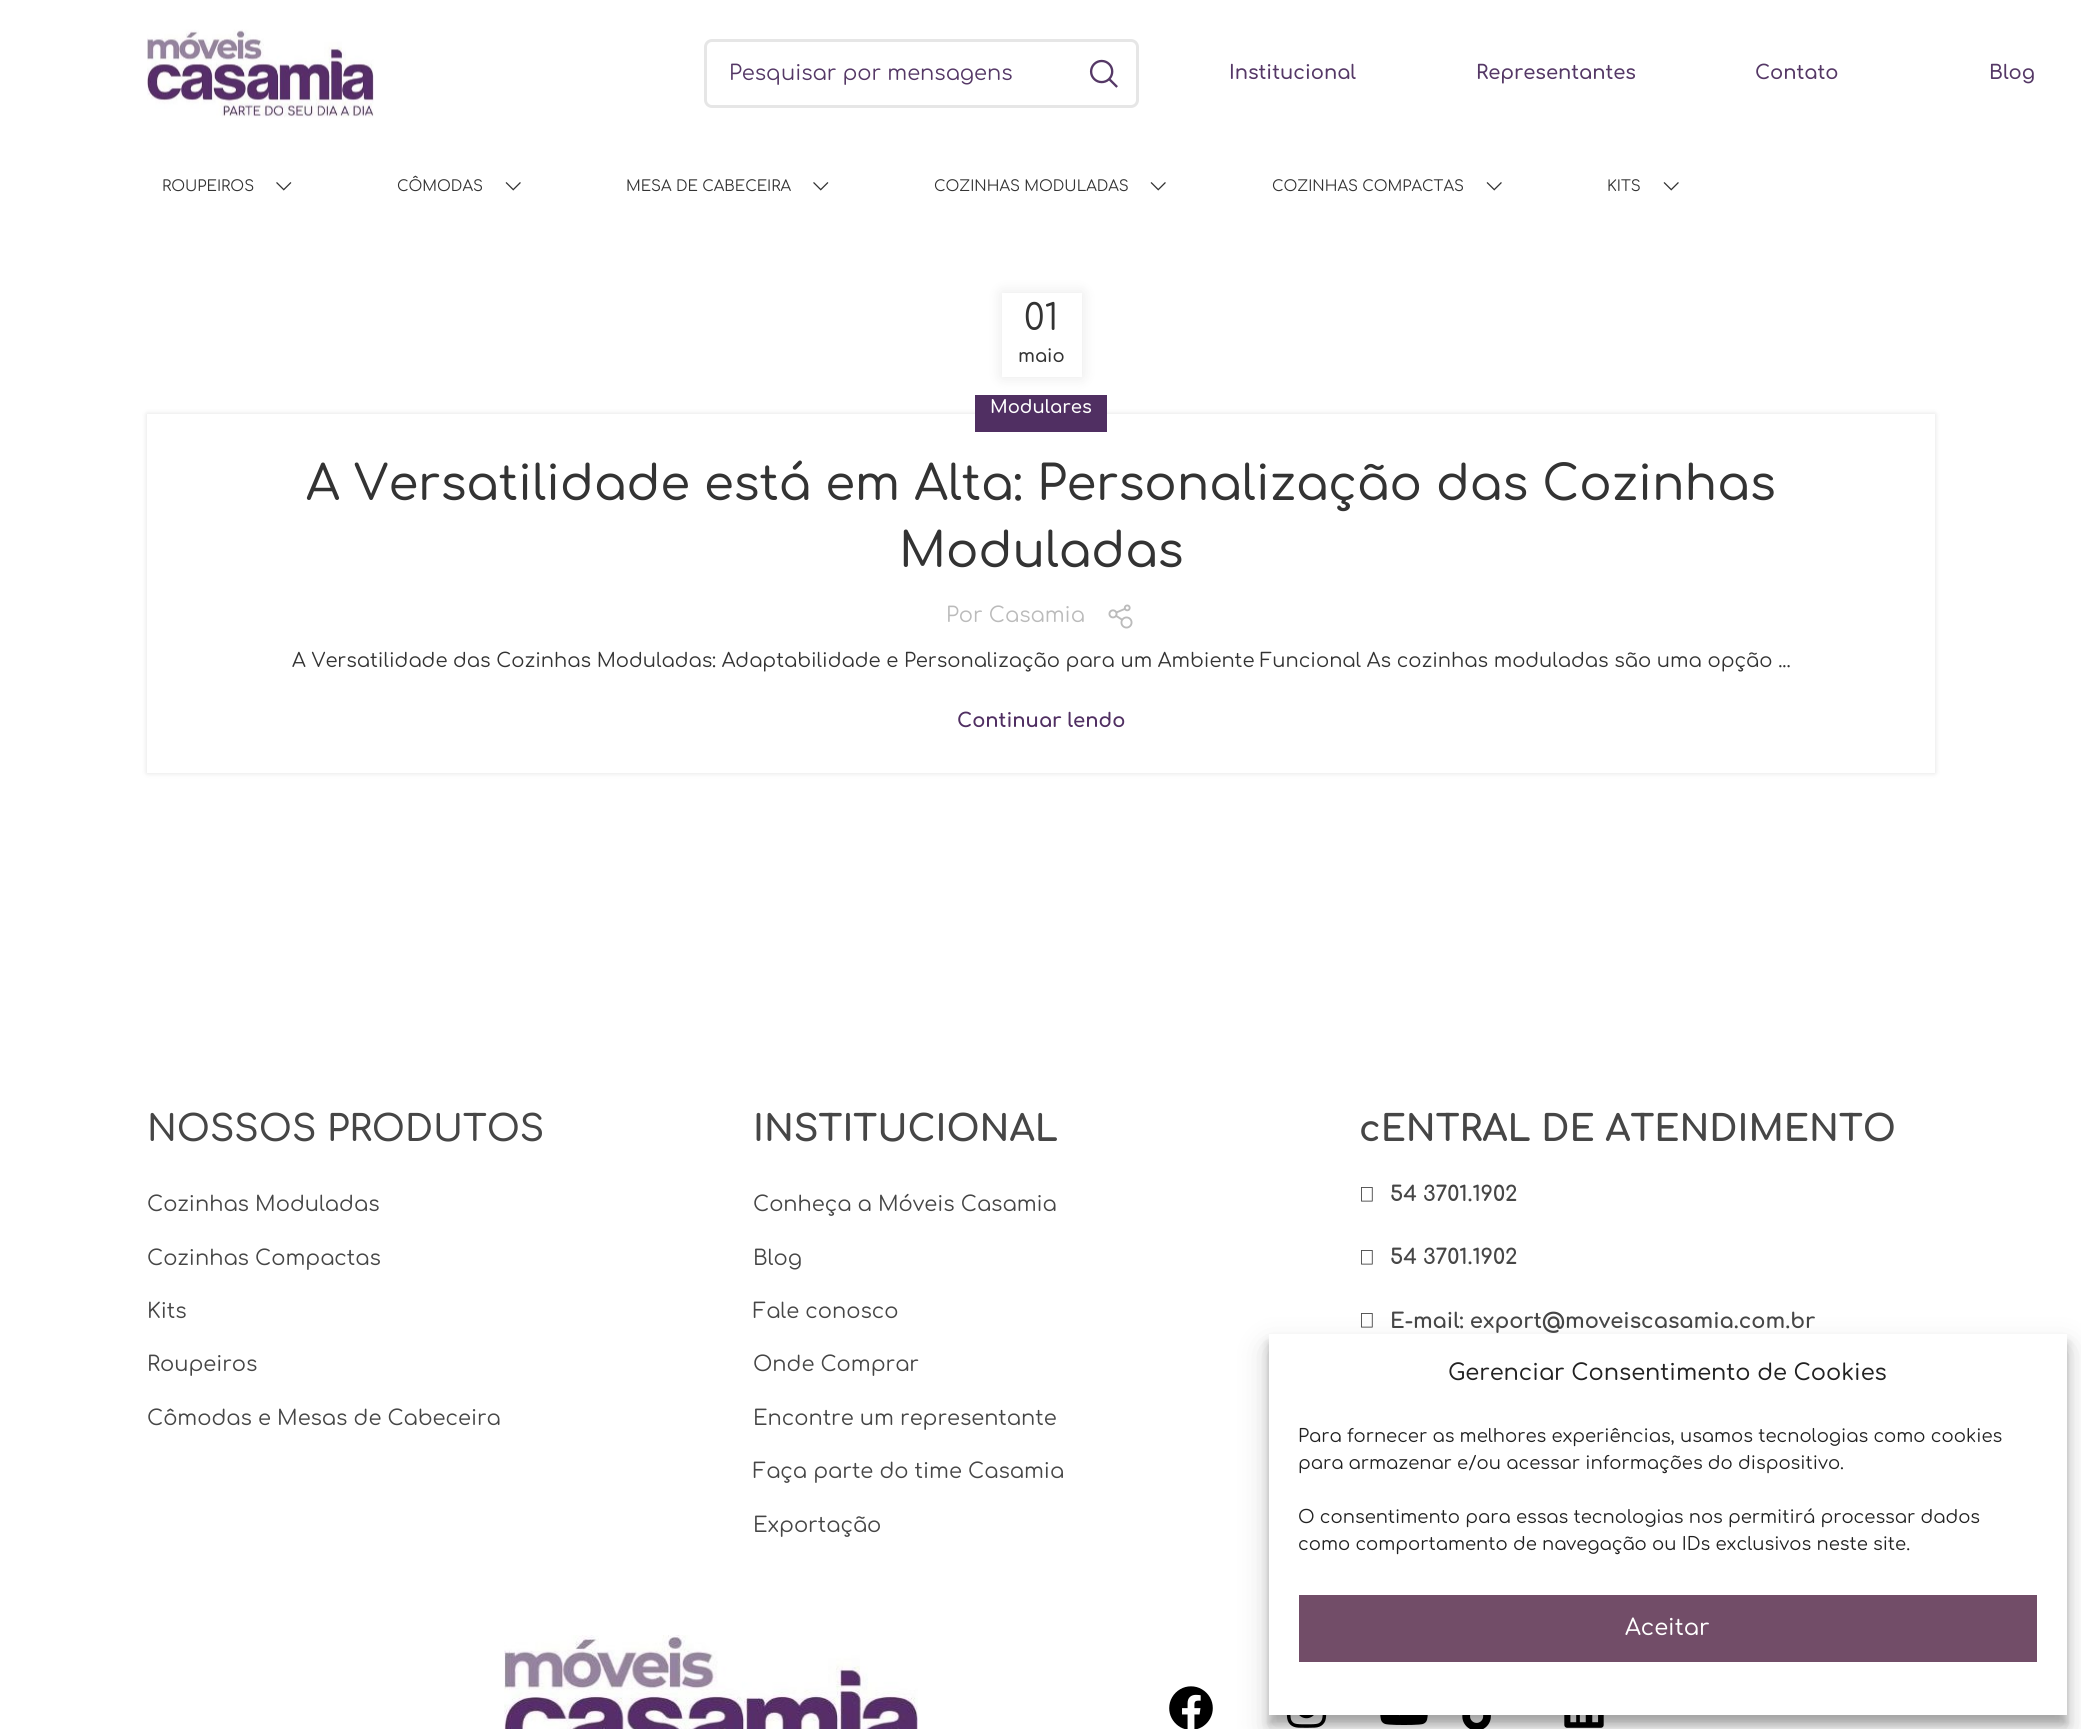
import math
import cairo

surface = cairo.ImageSurface(cairo.FORMAT_RGB24, 2081, 1729)
ctx = cairo.Context(surface)
options = cairo.FontOptions()
options.set_hint_metrics(cairo.HINT_METRICS_OFF)
options.set_hint_style(cairo.HINT_STYLE_NONE)
ctx.set_font_options(options)
ctx.set_miter_limit(4)


def round_rect(x, y, w, h, r):
    ctx.new_sub_path()
    for i, (u, v) in enumerate([(x + w - r, y + h - r), (x + r, y + h - r), (x + r, y + r), (x + w - r, y + r)]):
        ctx.arc(u, v, r, i * math.pi / 2, (i + 1) * math.pi / 2)
    ctx.close_path()


def shadow(x, y, w, h, r, blur, alpha):
    ctx.push_group_with_content(cairo.CONTENT_ALPHA)
    ctx.set_operator(cairo.OPERATOR_SOURCE)
    for i in range(15, -16, -2):
        e = blur * i / 6
        if min(w, h) + 2 * e > 0:
            ctx.set_source_rgba(0, 0, 0, alpha * math.erfc((i - 1) / 8.5) / 2)
            round_rect(x - e, y - e, w + 2 * e, h + 2 * e, max(0, min(r + e + blur * .6, min(w, h) / 2 + e)))
            ctx.fill()
    ctx.mask(ctx.pop_group())


def picture(path, x, y, w, h):
    ctx.save()
    ctx.set_source_surface(cairo.ImageSurface.create_from_png(path), x, y)
    ctx.rectangle(x, y, w, h)
    ctx.fill()
    ctx.restore()


ctx.set_source_rgb(1, 1, 1)
ctx.paint()
picture("img1.png", 147, 29, 227, 89)
round_rect(705.5, 40.5, 432, 66, 6.5)
ctx.set_source_rgb(0.902, 0.902, 0.902)
ctx.set_line_width(3)
ctx.stroke()
ctx.select_font_face("Comfortaa")
ctx.set_font_size(21)
ctx.set_source_rgb(0.333, 0.22, 0.4)
ctx.move_to(729, 80)
ctx.show_text("Pesquisar por mensagens")
picture("img2.png", 1089, 59, 29, 29)
ctx.select_font_face("Comfortaa SemiBold")
ctx.set_font_size(19.5)
ctx.move_to(1229, 79)
ctx.show_text("Institucional")
ctx.move_to(1476, 79)
ctx.show_text("Representantes")
ctx.move_to(1755, 79)
ctx.show_text("Contato")
ctx.move_to(1989, 79)
ctx.show_text("Blog")
ctx.select_font_face("Comfortaa")
ctx.set_font_size(15)
ctx.set_source_rgb(0.2, 0.2, 0.2)
ctx.move_to(162, 191)
ctx.show_text("ROUPEIROS")
picture("img3.png", 276, 182, 16, 9)
ctx.move_to(397, 191)
ctx.show_text("CÔMODAS")
picture("img4.png", 505, 182, 16, 9)
ctx.move_to(626, 191)
ctx.show_text("MESA DE CABECEIRA")
picture("img3.png", 813, 182, 16, 9)
ctx.move_to(934, 191)
ctx.show_text("COZINHAS MODULADAS")
picture("img4.png", 1150, 182, 16, 9)
ctx.move_to(1272, 191)
ctx.show_text("COZINHAS COMPACTAS")
picture("img4.png", 1486, 182, 16, 9)
ctx.move_to(1607, 191)
ctx.show_text("KITS")
picture("img4.png", 1663, 182, 16, 9)
ctx.set_source_rgb(0, 0, 0)
shadow(1002, 293, 80, 84, 0, 7, 0.1)
ctx.set_source_rgb(1, 1, 1)
ctx.rectangle(1002, 293, 80, 84)
ctx.fill()
ctx.set_font_size(36)
ctx.set_source_rgb(0.2, 0.2, 0.2)
ctx.move_to(1024, 330)
ctx.show_text("01")
ctx.select_font_face("Comfortaa SemiBold")
ctx.set_font_size(18)
ctx.move_to(1018, 362)
ctx.show_text("maio")
ctx.set_source_rgb(0, 0, 0)
shadow(147, 414, 1788, 359, 0, 3, 0.12)
ctx.set_source_rgb(1, 1, 1)
ctx.rectangle(147, 414, 1788, 359)
ctx.fill()
ctx.set_source_rgb(0.314, 0.184, 0.384)
ctx.rectangle(975, 395, 132, 37)
ctx.fill()
ctx.set_source_rgb(1, 1, 1)
ctx.move_to(990, 413)
ctx.show_text("Modulares")
ctx.select_font_face("Comfortaa Medium")
ctx.set_font_size(48)
ctx.set_source_rgb(0.2, 0.2, 0.2)
ctx.move_to(306, 500)
ctx.show_text("A Versatilidade está em Alta: Personalização das Cozinhas")
ctx.move_to(899, 567)
ctx.show_text("Moduladas")
ctx.select_font_face("Comfortaa")
ctx.set_font_size(21)
ctx.set_source_rgb(0.733, 0.733, 0.733)
ctx.move_to(946, 622)
ctx.show_text("Por Casamia")
picture("img5.png", 1108, 604, 25, 25)
ctx.set_font_size(19.5)
ctx.set_source_rgb(0.2, 0.2, 0.2)
ctx.move_to(292, 667)
ctx.show_text("A Versatilidade das Cozinhas Moduladas: Adaptabilidade e Personalização para um Ambiente Funcional As cozinhas moduladas são uma opção ...")
ctx.select_font_face("Comfortaa", cairo.FONT_SLANT_NORMAL, cairo.FONT_WEIGHT_BOLD)
ctx.set_source_rgb(0.314, 0.184, 0.384)
ctx.move_to(957, 727)
ctx.show_text("Continuar lendo")
ctx.select_font_face("Comfortaa SemiBold")
ctx.set_font_size(36)
ctx.set_source_rgb(0.275, 0.275, 0.275)
ctx.move_to(147, 1141)
ctx.show_text("NOSSOS PRODUTOS")
ctx.select_font_face("Comfortaa")
ctx.set_font_size(21)
ctx.move_to(147, 1211)
ctx.show_text("Cozinhas Moduladas")
ctx.move_to(147, 1265)
ctx.show_text("Cozinhas Compactas")
ctx.move_to(147, 1318)
ctx.show_text("Kits")
ctx.move_to(147, 1371)
ctx.show_text("Roupeiros")
ctx.move_to(147, 1425)
ctx.show_text("Cômodas e Mesas de Cabeceira")
ctx.select_font_face("Comfortaa", cairo.FONT_SLANT_NORMAL, cairo.FONT_WEIGHT_BOLD)
ctx.set_font_size(36)
ctx.move_to(753, 1141)
ctx.show_text("INSTITUCIONAL")
ctx.select_font_face("Comfortaa")
ctx.set_font_size(21)
ctx.move_to(753, 1211)
ctx.show_text("Conheça a Móveis Casamia")
ctx.move_to(753, 1265)
ctx.show_text("Blog")
ctx.move_to(753, 1318)
ctx.show_text("Fale conosco")
ctx.move_to(753, 1371)
ctx.show_text("Onde Comprar")
ctx.move_to(753, 1425)
ctx.show_text("Encontre um representante")
ctx.move_to(753, 1478)
ctx.show_text("Faça parte do time Casamia")
ctx.move_to(753, 1532)
ctx.show_text("Exportação")
ctx.select_font_face("Comfortaa", cairo.FONT_SLANT_NORMAL, cairo.FONT_WEIGHT_BOLD)
ctx.set_font_size(36)
ctx.move_to(1359, 1141)
ctx.show_text("cENTRAL DE ATENDIMENTO")
picture("img6.png", 1361, 1187, 12, 15)
ctx.set_font_size(21)
ctx.move_to(1390, 1201)
ctx.show_text("54 3701.1902")
picture("img6.png", 1361, 1250, 12, 15)
ctx.move_to(1390, 1264)
ctx.show_text("54 3701.1902")
picture("img6.png", 1361, 1313, 12, 15)
ctx.move_to(1390, 1328)
ctx.show_text("E-mail: export@moveiscasamia.com.br")
picture("img7.png", 504, 1635, 414, 94)
picture("img8.png", 1169, 1686, 44, 43)
picture("img9.png", 1286, 1715, 41, 13)
picture("img10.png", 1380, 1715, 48, 10)
picture("img11.png", 1462, 1715, 29, 14)
picture("img12.png", 1564, 1715, 40, 13)
ctx.set_source_rgb(0, 0, 0)
shadow(1269, 1343, 798, 381, 0, 4.5, 0.23)
shadow(1269, 1349, 798, 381, 0, 15, 0.19)
ctx.set_source_rgb(1, 1, 1)
ctx.rectangle(1269, 1334, 798, 381)
ctx.fill()
ctx.select_font_face("Comfortaa Medium")
ctx.set_font_size(22.5)
ctx.set_source_rgb(0.133, 0.133, 0.133)
ctx.move_to(1448, 1380)
ctx.show_text("Gerenciar Consentimento de Cookies")
ctx.select_font_face("Comfortaa")
ctx.set_font_size(18)
ctx.move_to(1298, 1442)
ctx.show_text("Para fornecer as melhores experiências, usamos tecnologias como cookies")
ctx.move_to(1298, 1469)
ctx.show_text("para armazenar e/ou acessar informações do dispositivo.")
ctx.move_to(1298, 1523)
ctx.show_text("O consentimento para essas tecnologias nos permitirá processar dados")
ctx.move_to(1298, 1550)
ctx.show_text("como comportamento de navegação ou IDs exclusivos neste site.")
ctx.set_source_rgb(0.447, 0.302, 0.408)
ctx.rectangle(1299, 1595, 738, 67)
ctx.fill()
ctx.select_font_face("Comfortaa Medium")
ctx.set_font_size(22.5)
ctx.set_source_rgb(1, 1, 1)
ctx.move_to(1625, 1635)
ctx.show_text("Aceitar")
surface.write_to_png("page.png")
